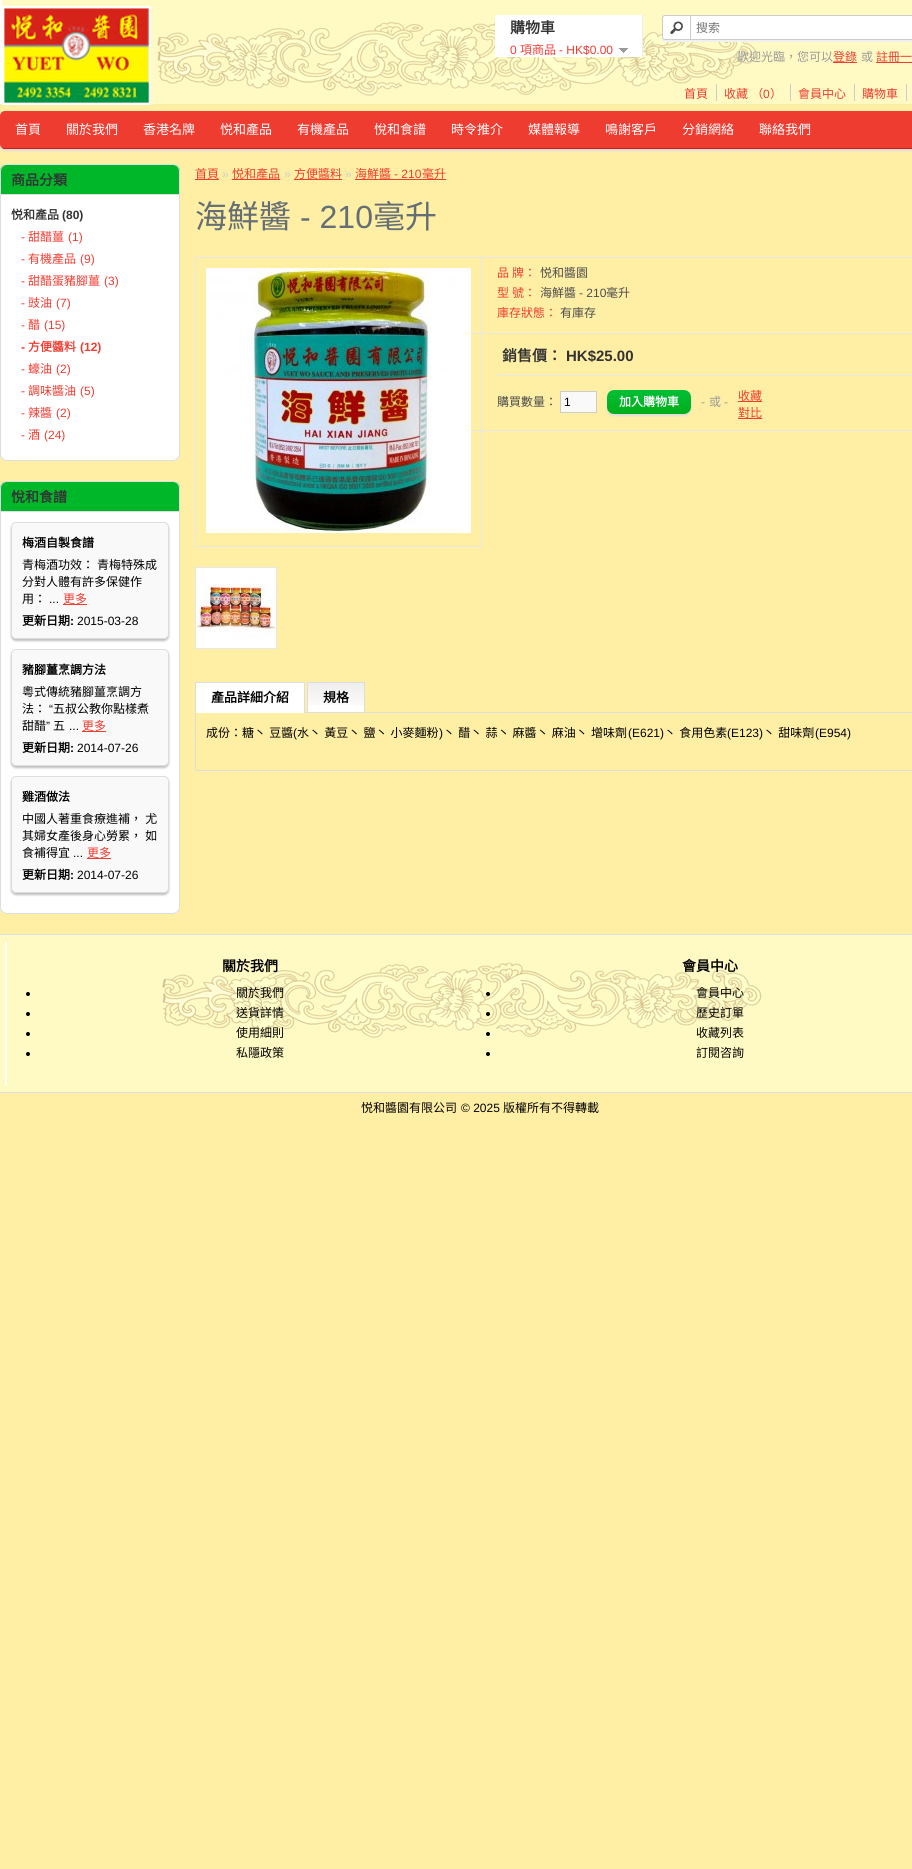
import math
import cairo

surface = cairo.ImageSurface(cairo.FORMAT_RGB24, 912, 1869)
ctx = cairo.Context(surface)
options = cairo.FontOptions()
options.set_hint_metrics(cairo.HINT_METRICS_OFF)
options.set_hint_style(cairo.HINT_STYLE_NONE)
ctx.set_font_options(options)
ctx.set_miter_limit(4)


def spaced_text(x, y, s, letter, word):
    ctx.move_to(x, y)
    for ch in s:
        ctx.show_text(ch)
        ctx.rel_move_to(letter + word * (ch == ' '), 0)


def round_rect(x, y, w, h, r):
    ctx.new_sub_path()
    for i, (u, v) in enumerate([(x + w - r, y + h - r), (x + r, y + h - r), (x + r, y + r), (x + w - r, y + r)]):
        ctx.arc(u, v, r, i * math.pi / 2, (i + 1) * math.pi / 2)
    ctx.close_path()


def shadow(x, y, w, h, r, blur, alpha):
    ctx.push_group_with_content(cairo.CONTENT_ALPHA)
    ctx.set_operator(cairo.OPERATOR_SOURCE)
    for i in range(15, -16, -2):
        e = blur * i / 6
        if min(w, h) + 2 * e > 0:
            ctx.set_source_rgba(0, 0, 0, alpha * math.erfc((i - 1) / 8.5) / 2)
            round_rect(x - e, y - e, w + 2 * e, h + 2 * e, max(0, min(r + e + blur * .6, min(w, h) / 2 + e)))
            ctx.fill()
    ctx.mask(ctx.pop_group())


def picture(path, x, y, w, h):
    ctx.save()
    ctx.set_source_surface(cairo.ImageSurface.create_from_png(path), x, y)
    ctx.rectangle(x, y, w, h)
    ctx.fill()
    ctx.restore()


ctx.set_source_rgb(1, 0.937, 0.647)
ctx.paint()
ctx.set_source_rgb(1, 0.98, 0.765)
ctx.rectangle(757, 0, 155, 104)
ctx.fill()
picture("img1.png", 0, 0, 757, 104)
picture("img2.png", 2, 6, 149, 99)
ctx.set_source_rgb(1, 1, 1)
ctx.rectangle(495, 15, 147, 42)
ctx.fill()
ctx.set_source_rgb(0.933, 0.933, 0.933)
ctx.rectangle(642, 15, 1, 42)
ctx.fill()
ctx.select_font_face("Noto Sans CJK HK", cairo.FONT_SLANT_NORMAL, cairo.FONT_WEIGHT_BOLD)
ctx.set_font_size(15)
ctx.set_source_rgb(0.2, 0.2, 0.2)
ctx.move_to(510, 33)
ctx.show_text("購物車")
ctx.select_font_face("Liberation Sans")
ctx.set_font_size(12)
ctx.set_source_rgb(0.937, 0.235, 0.192)
ctx.move_to(510, 54)
ctx.show_text("0")
ctx.select_font_face("Noto Sans CJK HK")
ctx.move_to(520, 54)
ctx.show_text("項商品")
ctx.select_font_face("Liberation Sans")
ctx.move_to(559, 54)
ctx.show_text("- HK$0.00")
picture("img3.png", 619, 48, 9, 5)
ctx.set_source_rgb(0.941, 0.941, 0.941)
ctx.new_path()
ctx.move_to(662, 37)
ctx.curve_to(662, 39, 662, 42, 665, 42)
ctx.line_to(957, 42)
ctx.curve_to(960, 42, 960, 39, 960, 37)
ctx.curve_to(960, 39, 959, 40, 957, 40)
ctx.line_to(665, 40)
ctx.curve_to(663, 40, 662, 39, 662, 37)
ctx.close_path()
ctx.fill()
ctx.set_source_rgb(1, 1, 1)
round_rect(662.5, 15.5, 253, 24, 2.5)
ctx.fill_preserve()
ctx.set_source_rgb(0.8, 0.8, 0.8)
ctx.set_line_width(1)
ctx.stroke()
picture("img4.png", 670, 21, 13, 13)
ctx.rectangle(690, 15, 1, 24)
ctx.fill()
ctx.select_font_face("Noto Sans CJK HK")
ctx.set_source_rgb(0.459, 0.459, 0.459)
ctx.move_to(696, 32)
ctx.show_text("搜索")
ctx.set_source_rgb(0.6, 0.6, 0.6)
ctx.move_to(737, 61)
ctx.show_text("歡迎光臨，您可以")
ctx.set_source_rgb(0.937, 0.235, 0.192)
ctx.move_to(833, 61)
ctx.show_text("登錄")
ctx.rectangle(833, 62, 24, 1)
ctx.fill()
ctx.set_source_rgb(0.6, 0.6, 0.6)
ctx.move_to(861, 61)
ctx.show_text("或")
ctx.set_source_rgb(0.937, 0.235, 0.192)
ctx.move_to(876, 61)
ctx.show_text("註冊一")
ctx.rectangle(876, 62, 36, 1)
ctx.fill()
ctx.move_to(684, 98)
ctx.show_text("首頁")
ctx.set_source_rgb(0.8, 0.8, 0.8)
ctx.rectangle(716, 84, 1, 17)
ctx.fill()
ctx.set_source_rgb(0.937, 0.235, 0.192)
spaced_text(724, 98, "收藏 （", 0, 0.5)
ctx.select_font_face("Liberation Sans")
ctx.move_to(763, 98)
ctx.show_text("0")
ctx.select_font_face("Noto Sans CJK HK")
ctx.move_to(770, 98)
ctx.show_text("）")
ctx.set_source_rgb(0.8, 0.8, 0.8)
ctx.rectangle(790, 84, 1, 17)
ctx.fill()
ctx.set_source_rgb(0.937, 0.235, 0.192)
ctx.move_to(798, 98)
ctx.show_text("會員中心")
ctx.set_source_rgb(0.8, 0.8, 0.8)
ctx.rectangle(854, 84, 1, 17)
ctx.fill()
ctx.set_source_rgb(0.937, 0.235, 0.192)
ctx.move_to(862, 98)
ctx.show_text("購物車")
ctx.set_source_rgb(0.8, 0.8, 0.8)
ctx.rectangle(906, 84, 1, 17)
ctx.fill()
ctx.set_source_rgb(0.867, 0.867, 0.867)
shadow(0, 113, 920, 38, 5, 1, 1)
ctx.set_source_rgb(0.937, 0.235, 0.192)
round_rect(0, 111, 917, 38, 5)
ctx.fill()
ctx.set_source_rgb(0.808, 0.11, 0.094)
ctx.rectangle(3, 148, 909, 1)
ctx.fill()
ctx.set_font_size(13)
ctx.set_source_rgb(1, 1, 1)
ctx.move_to(15, 134)
ctx.show_text("首頁")
ctx.move_to(66, 134)
ctx.show_text("關於我們")
ctx.move_to(143, 134)
ctx.show_text("香港名牌")
ctx.move_to(220, 134)
ctx.show_text("悦和產品")
ctx.move_to(297, 134)
ctx.show_text("有機產品")
ctx.move_to(374, 134)
ctx.show_text("悅和食譜")
ctx.move_to(451, 134)
ctx.show_text("時令推介")
ctx.move_to(528, 134)
ctx.show_text("媒體報導")
ctx.move_to(605, 134)
ctx.show_text("鳴謝客戶")
ctx.move_to(682, 134)
ctx.show_text("分銷網絡")
ctx.move_to(759, 134)
ctx.show_text("聯絡我們")
picture("img5.png", 0, 165, 180, 29)
ctx.new_path()
ctx.move_to(7, 164.5)
ctx.line_to(173, 164.5)
ctx.curve_to(176.5, 164.5, 179.5, 167.5, 179.5, 171)
ctx.line_to(179.5, 194.5)
ctx.line_to(0.5, 194.5)
ctx.line_to(0.5, 171)
ctx.curve_to(0.5, 167.5, 3.5, 164.5, 7, 164.5)
ctx.close_path()
ctx.set_source_rgb(0.859, 0.871, 0.882)
ctx.stroke()
ctx.select_font_face("Noto Sans CJK HK", cairo.FONT_SLANT_NORMAL, cairo.FONT_WEIGHT_BOLD)
ctx.set_font_size(14)
ctx.set_source_rgb(0.2, 0.2, 0.2)
ctx.move_to(11, 185)
ctx.show_text("商品分類")
ctx.set_source_rgb(1, 1, 1)
ctx.new_path()
ctx.move_to(0, 195)
ctx.line_to(180, 195)
ctx.line_to(180, 454)
ctx.curve_to(180, 458, 177, 461, 173, 461)
ctx.line_to(7, 461)
ctx.curve_to(3, 461, 0, 458, 0, 454)
ctx.close_path()
ctx.fill()
ctx.set_source_rgb(0.859, 0.871, 0.882)
ctx.set_fill_rule(cairo.FILL_RULE_EVEN_ODD)
ctx.new_path()
ctx.move_to(0, 195)
ctx.line_to(180, 195)
ctx.line_to(180, 454)
ctx.curve_to(180, 458, 177, 461, 173, 461)
ctx.line_to(7, 461)
ctx.curve_to(3, 461, 0, 458, 0, 454)
ctx.close_path()
ctx.move_to(1, 195)
ctx.line_to(179, 195)
ctx.line_to(179, 454)
ctx.curve_to(179, 457, 176, 460, 173, 460)
ctx.line_to(7, 460)
ctx.curve_to(4, 460, 1, 457, 1, 454)
ctx.close_path()
ctx.fill()
ctx.set_font_size(12)
ctx.set_source_rgb(0.2, 0.2, 0.2)
ctx.move_to(11, 219)
ctx.show_text("悦和產品")
ctx.select_font_face("Liberation Sans", cairo.FONT_SLANT_NORMAL, cairo.FONT_WEIGHT_BOLD)
ctx.move_to(62, 219)
ctx.show_text("(80)")
ctx.select_font_face("Liberation Sans")
ctx.set_source_rgb(0.937, 0.235, 0.192)
ctx.move_to(21, 241)
ctx.show_text("-")
ctx.select_font_face("Noto Sans CJK HK")
ctx.move_to(28, 241)
ctx.show_text("甜醋薑")
ctx.select_font_face("Liberation Sans")
ctx.move_to(68, 241)
ctx.show_text("(1)")
ctx.move_to(21, 263)
ctx.show_text("-")
ctx.select_font_face("Noto Sans CJK HK")
ctx.move_to(28, 263)
ctx.show_text("有機產品")
ctx.select_font_face("Liberation Sans")
ctx.move_to(80, 263)
ctx.show_text("(9)")
ctx.move_to(21, 285)
ctx.show_text("-")
ctx.select_font_face("Noto Sans CJK HK")
ctx.move_to(28, 285)
ctx.show_text("甜醋蛋豬腳薑")
ctx.select_font_face("Liberation Sans")
ctx.move_to(104, 285)
ctx.show_text("(3)")
ctx.move_to(21, 307)
ctx.show_text("-")
ctx.select_font_face("Noto Sans CJK HK")
ctx.move_to(28, 307)
ctx.show_text("豉油")
ctx.select_font_face("Liberation Sans")
ctx.move_to(56, 307)
ctx.show_text("(7)")
ctx.move_to(21, 329)
ctx.show_text("-")
ctx.select_font_face("Noto Sans CJK HK")
ctx.move_to(28, 329)
ctx.show_text("醋")
ctx.select_font_face("Liberation Sans")
ctx.move_to(44, 329)
ctx.show_text("(15)")
ctx.select_font_face("Liberation Sans", cairo.FONT_SLANT_NORMAL, cairo.FONT_WEIGHT_BOLD)
ctx.move_to(21, 351)
ctx.show_text("-")
ctx.select_font_face("Noto Sans CJK HK", cairo.FONT_SLANT_NORMAL, cairo.FONT_WEIGHT_BOLD)
ctx.move_to(28, 351)
ctx.show_text("方便醬料")
ctx.select_font_face("Liberation Sans", cairo.FONT_SLANT_NORMAL, cairo.FONT_WEIGHT_BOLD)
ctx.move_to(80, 351)
ctx.show_text("(12)")
ctx.select_font_face("Liberation Sans")
ctx.move_to(21, 373)
ctx.show_text("-")
ctx.select_font_face("Noto Sans CJK HK")
ctx.move_to(28, 373)
ctx.show_text("蠔油")
ctx.select_font_face("Liberation Sans")
ctx.move_to(56, 373)
ctx.show_text("(2)")
ctx.move_to(21, 395)
ctx.show_text("-")
ctx.select_font_face("Noto Sans CJK HK")
ctx.move_to(28, 395)
ctx.show_text("調味醬油")
ctx.select_font_face("Liberation Sans")
ctx.move_to(80, 395)
ctx.show_text("(5)")
ctx.move_to(21, 417)
ctx.show_text("-")
ctx.select_font_face("Noto Sans CJK HK")
ctx.move_to(28, 417)
ctx.show_text("辣醬")
ctx.select_font_face("Liberation Sans")
ctx.move_to(56, 417)
ctx.show_text("(2)")
ctx.move_to(21, 439)
ctx.show_text("-")
ctx.select_font_face("Noto Sans CJK HK")
ctx.move_to(28, 439)
ctx.show_text("酒")
ctx.select_font_face("Liberation Sans")
ctx.move_to(44, 439)
ctx.show_text("(24)")
picture("img5.png", 0, 482, 180, 29)
ctx.new_path()
ctx.move_to(7, 481.5)
ctx.line_to(173, 481.5)
ctx.curve_to(176.5, 481.5, 179.5, 484.5, 179.5, 488)
ctx.line_to(179.5, 511.5)
ctx.line_to(0.5, 511.5)
ctx.line_to(0.5, 488)
ctx.curve_to(0.5, 484.5, 3.5, 481.5, 7, 481.5)
ctx.close_path()
ctx.set_source_rgb(0.859, 0.871, 0.882)
ctx.stroke()
ctx.select_font_face("Noto Sans CJK HK", cairo.FONT_SLANT_NORMAL, cairo.FONT_WEIGHT_BOLD)
ctx.set_font_size(14)
ctx.set_source_rgb(0.2, 0.2, 0.2)
ctx.move_to(11, 502)
ctx.show_text("悅和食譜")
ctx.set_source_rgb(1, 1, 1)
ctx.new_path()
ctx.move_to(0, 512)
ctx.line_to(180, 512)
ctx.line_to(180, 907)
ctx.curve_to(180, 911, 177, 914, 173, 914)
ctx.line_to(7, 914)
ctx.curve_to(3, 914, 0, 911, 0, 907)
ctx.close_path()
ctx.fill()
ctx.set_source_rgb(0.859, 0.871, 0.882)
ctx.new_path()
ctx.move_to(0, 512)
ctx.line_to(180, 512)
ctx.line_to(180, 907)
ctx.curve_to(180, 911, 177, 914, 173, 914)
ctx.line_to(7, 914)
ctx.curve_to(3, 914, 0, 911, 0, 907)
ctx.close_path()
ctx.move_to(1, 512)
ctx.line_to(179, 512)
ctx.line_to(179, 907)
ctx.curve_to(179, 910, 176, 913, 173, 913)
ctx.line_to(7, 913)
ctx.curve_to(4, 913, 1, 910, 1, 907)
ctx.close_path()
ctx.fill()
ctx.set_source_rgb(0.753, 0.753, 0.753)
shadow(11, 524, 158, 117, 5, 1, 1)
ctx.set_source_rgb(0.973, 0.973, 0.973)
round_rect(11.5, 522.5, 157, 116, 4.5)
ctx.fill_preserve()
ctx.set_source_rgb(0.859, 0.871, 0.882)
ctx.stroke()
ctx.set_font_size(12)
ctx.set_source_rgb(0, 0, 0)
ctx.move_to(22, 547)
ctx.show_text("梅酒自製食譜")
ctx.select_font_face("Noto Sans CJK HK")
ctx.move_to(22, 569)
ctx.show_text("青梅酒功效：")
ctx.move_to(97, 569)
ctx.show_text("青梅特殊成")
ctx.move_to(22, 586)
ctx.show_text("分對人體有許多保健作")
ctx.move_to(22, 603)
ctx.show_text("用：")
ctx.select_font_face("Liberation Sans")
ctx.move_to(49, 603)
ctx.show_text("...")
ctx.select_font_face("Noto Sans CJK HK")
ctx.set_source_rgb(0.937, 0.235, 0.192)
ctx.move_to(63, 603)
ctx.show_text("更多")
ctx.rectangle(63, 604, 24, 1)
ctx.fill()
ctx.select_font_face("Noto Sans CJK HK", cairo.FONT_SLANT_NORMAL, cairo.FONT_WEIGHT_BOLD)
ctx.set_source_rgb(0, 0, 0)
ctx.move_to(22, 625)
ctx.show_text("更新日期")
ctx.select_font_face("Liberation Sans", cairo.FONT_SLANT_NORMAL, cairo.FONT_WEIGHT_BOLD)
ctx.move_to(70, 625)
ctx.show_text(":")
ctx.select_font_face("Liberation Sans")
ctx.move_to(77, 625)
ctx.show_text("2015-03-28")
ctx.set_source_rgb(0.753, 0.753, 0.753)
shadow(11, 651, 158, 117, 5, 1, 1)
ctx.set_source_rgb(0.973, 0.973, 0.973)
round_rect(11.5, 649.5, 157, 116, 4.5)
ctx.fill_preserve()
ctx.set_source_rgb(0.859, 0.871, 0.882)
ctx.stroke()
ctx.select_font_face("Noto Sans CJK HK", cairo.FONT_SLANT_NORMAL, cairo.FONT_WEIGHT_BOLD)
ctx.set_source_rgb(0, 0, 0)
ctx.move_to(22, 674)
ctx.show_text("豬腳薑烹調方法")
ctx.select_font_face("Noto Sans CJK HK")
ctx.move_to(22, 696)
ctx.show_text("粵式傳統豬腳薑烹調方")
ctx.move_to(22, 713)
ctx.show_text("法：")
ctx.select_font_face("Liberation Sans")
ctx.move_to(49, 713)
ctx.show_text("“")
ctx.select_font_face("Noto Sans CJK HK")
ctx.move_to(53, 713)
ctx.show_text("五叔公教你點樣煮")
ctx.move_to(22, 730)
ctx.show_text("甜醋")
ctx.select_font_face("Liberation Sans")
ctx.move_to(46, 730)
ctx.show_text("”")
ctx.select_font_face("Noto Sans CJK HK")
ctx.move_to(53, 730)
ctx.show_text("五")
ctx.select_font_face("Liberation Sans")
ctx.move_to(69, 730)
ctx.show_text("...")
ctx.select_font_face("Noto Sans CJK HK")
ctx.set_source_rgb(0.937, 0.235, 0.192)
ctx.move_to(82, 730)
ctx.show_text("更多")
ctx.rectangle(82, 731, 24, 1)
ctx.fill()
ctx.select_font_face("Noto Sans CJK HK", cairo.FONT_SLANT_NORMAL, cairo.FONT_WEIGHT_BOLD)
ctx.set_source_rgb(0, 0, 0)
ctx.move_to(22, 752)
ctx.show_text("更新日期")
ctx.select_font_face("Liberation Sans", cairo.FONT_SLANT_NORMAL, cairo.FONT_WEIGHT_BOLD)
ctx.move_to(70, 752)
ctx.show_text(":")
ctx.select_font_face("Liberation Sans")
ctx.move_to(77, 752)
ctx.show_text("2014-07-26")
ctx.set_source_rgb(0.753, 0.753, 0.753)
shadow(11, 778, 158, 117, 5, 1, 1)
ctx.set_source_rgb(0.973, 0.973, 0.973)
round_rect(11.5, 776.5, 157, 116, 4.5)
ctx.fill_preserve()
ctx.set_source_rgb(0.859, 0.871, 0.882)
ctx.stroke()
ctx.select_font_face("Noto Sans CJK HK", cairo.FONT_SLANT_NORMAL, cairo.FONT_WEIGHT_BOLD)
ctx.set_source_rgb(0, 0, 0)
ctx.move_to(22, 801)
ctx.show_text("雞酒做法")
ctx.select_font_face("Noto Sans CJK HK")
spaced_text(22, 823, "中國人著重食療進補， 尤", 0, 0.5)
spaced_text(22, 840, "其婦女產後身心勞累， 如", 0, 0.5)
ctx.move_to(22, 857)
ctx.show_text("食補得宜")
ctx.select_font_face("Liberation Sans")
ctx.move_to(73, 857)
ctx.show_text("...")
ctx.select_font_face("Noto Sans CJK HK")
ctx.set_source_rgb(0.937, 0.235, 0.192)
ctx.move_to(87, 857)
ctx.show_text("更多")
ctx.rectangle(87, 858, 24, 1)
ctx.fill()
ctx.select_font_face("Noto Sans CJK HK", cairo.FONT_SLANT_NORMAL, cairo.FONT_WEIGHT_BOLD)
ctx.set_source_rgb(0, 0, 0)
ctx.move_to(22, 879)
ctx.show_text("更新日期")
ctx.select_font_face("Liberation Sans", cairo.FONT_SLANT_NORMAL, cairo.FONT_WEIGHT_BOLD)
ctx.move_to(70, 879)
ctx.show_text(":")
ctx.select_font_face("Liberation Sans")
ctx.move_to(77, 879)
ctx.show_text("2014-07-26")
ctx.select_font_face("Noto Sans CJK HK")
ctx.set_source_rgb(0.937, 0.235, 0.192)
ctx.move_to(195, 178)
ctx.show_text("首頁")
ctx.rectangle(195, 179, 24, 1)
ctx.fill()
ctx.select_font_face("Liberation Sans")
ctx.set_source_rgb(0.8, 0.8, 0.8)
ctx.move_to(222, 178)
ctx.show_text("»")
ctx.set_source_rgb(0.937, 0.235, 0.192)
ctx.rectangle(232, 179, 48, 1)
ctx.fill()
ctx.select_font_face("Noto Sans CJK HK")
ctx.move_to(232, 178)
ctx.show_text("悦和產品")
ctx.select_font_face("Liberation Sans")
ctx.set_source_rgb(0.8, 0.8, 0.8)
ctx.move_to(284, 178)
ctx.show_text("»")
ctx.select_font_face("Noto Sans CJK HK")
ctx.set_source_rgb(0.937, 0.235, 0.192)
ctx.move_to(294, 178)
ctx.show_text("方便醬料")
ctx.rectangle(294, 179, 48, 1)
ctx.fill()
ctx.select_font_face("Liberation Sans")
ctx.set_source_rgb(0.8, 0.8, 0.8)
ctx.move_to(345, 178)
ctx.show_text("»")
ctx.select_font_face("Noto Sans CJK HK")
ctx.set_source_rgb(0.937, 0.235, 0.192)
ctx.move_to(355, 178)
ctx.show_text("海鮮醬")
ctx.select_font_face("Liberation Sans")
ctx.move_to(394, 178)
ctx.show_text("- 210")
ctx.rectangle(355, 179, 91, 1)
ctx.fill()
ctx.select_font_face("Noto Sans CJK HK")
ctx.move_to(422, 178)
ctx.show_text("毫升")
ctx.set_font_size(32)
ctx.set_source_rgb(0.388, 0.431, 0.459)
ctx.move_to(195, 228)
ctx.show_text("海鮮醬")
ctx.select_font_face("Liberation Sans")
ctx.move_to(300, 228)
ctx.show_text("- 210")
ctx.select_font_face("Noto Sans CJK HK")
ctx.move_to(373, 228)
ctx.show_text("毫升")
ctx.set_source_rgb(0.906, 0.906, 0.906)
ctx.rectangle(471, 333, 441, 1)
ctx.fill()
ctx.rectangle(471, 430, 441, 1)
ctx.fill()
ctx.rectangle(195.5, 257.5, 286, 289)
ctx.stroke()
picture("img6.png", 206, 268, 265, 265)
ctx.rectangle(195.5, 567.5, 81, 81)
ctx.stroke()
picture("img7.png", 196, 568, 80, 80)
ctx.rectangle(482, 257, 430, 1)
ctx.fill()
ctx.set_font_size(12)
ctx.set_source_rgb(0.937, 0.235, 0.192)
ctx.move_to(497, 277)
ctx.show_text("品")
ctx.move_to(512, 277)
ctx.show_text("牌：")
ctx.set_source_rgb(0.302, 0.302, 0.302)
ctx.move_to(540, 277)
ctx.show_text("悦和醬園")
ctx.set_source_rgb(0.937, 0.235, 0.192)
ctx.move_to(497, 297)
ctx.show_text("型")
ctx.move_to(512, 297)
ctx.show_text("號：")
ctx.set_source_rgb(0.302, 0.302, 0.302)
ctx.move_to(540, 297)
ctx.show_text("海鮮醬")
ctx.select_font_face("Liberation Sans")
ctx.move_to(579, 297)
ctx.show_text("- 210")
ctx.select_font_face("Noto Sans CJK HK")
ctx.move_to(606, 297)
ctx.show_text("毫升")
ctx.set_source_rgb(0.937, 0.235, 0.192)
ctx.move_to(497, 317)
ctx.show_text("庫存狀態：")
ctx.set_source_rgb(0.302, 0.302, 0.302)
ctx.move_to(560, 317)
ctx.show_text("有庫存")
ctx.set_source_rgb(0.906, 0.906, 0.906)
ctx.rectangle(497, 375, 415, 1)
ctx.fill()
ctx.select_font_face("Noto Sans CJK HK", cairo.FONT_SLANT_NORMAL, cairo.FONT_WEIGHT_BOLD)
ctx.set_font_size(15)
ctx.set_source_rgb(0.2, 0.2, 0.2)
ctx.move_to(502, 361)
ctx.show_text("銷售價：")
ctx.select_font_face("Liberation Sans", cairo.FONT_SLANT_NORMAL, cairo.FONT_WEIGHT_BOLD)
ctx.move_to(566, 361)
ctx.show_text("HK$25.00")
ctx.select_font_face("Noto Sans CJK HK")
ctx.set_font_size(12)
ctx.set_source_rgb(0.302, 0.302, 0.302)
ctx.move_to(497, 406)
ctx.show_text("購買數量：")
ctx.set_source_rgb(0.973, 0.973, 0.973)
ctx.rectangle(560.5, 391.5, 36, 21)
ctx.fill_preserve()
ctx.set_source_rgb(0.8, 0.8, 0.8)
ctx.stroke()
ctx.select_font_face("Liberation Sans")
ctx.set_source_rgb(0, 0, 0)
ctx.move_to(564, 406)
ctx.show_text("1")
ctx.set_source_rgb(0.867, 0.867, 0.867)
shadow(607, 392, 84, 24, 7, 1, 1)
picture("img8.png", 607, 390, 84, 24)
ctx.select_font_face("Noto Sans CJK HK", cairo.FONT_SLANT_NORMAL, cairo.FONT_WEIGHT_BOLD)
ctx.set_source_rgb(1, 1, 1)
ctx.move_to(619, 406)
ctx.show_text("加入購物車")
ctx.select_font_face("Liberation Sans")
ctx.set_source_rgb(0.6, 0.6, 0.6)
ctx.move_to(701, 406)
ctx.show_text("-")
ctx.select_font_face("Noto Sans CJK HK")
ctx.move_to(709, 406)
ctx.show_text("或")
ctx.select_font_face("Liberation Sans")
ctx.move_to(724, 406)
ctx.show_text("-")
ctx.select_font_face("Noto Sans CJK HK")
ctx.set_source_rgb(0.937, 0.235, 0.192)
ctx.move_to(738, 400)
ctx.show_text("收藏")
ctx.rectangle(738, 401, 24, 1)
ctx.fill()
ctx.move_to(738, 417)
ctx.show_text("對比")
ctx.rectangle(738, 418, 24, 1)
ctx.fill()
ctx.set_source_rgb(0.867, 0.867, 0.867)
ctx.rectangle(305, 712, 607, 1)
ctx.fill()
ctx.set_source_rgb(1, 1, 1)
ctx.rectangle(196, 683, 108, 30)
ctx.fill()
ctx.set_source_rgb(0.867, 0.867, 0.867)
ctx.rectangle(195, 682, 110, 1)
ctx.fill()
ctx.rectangle(304, 682, 1, 31)
ctx.fill()
ctx.rectangle(195, 682, 1, 31)
ctx.fill()
ctx.select_font_face("Noto Sans CJK HK", cairo.FONT_SLANT_NORMAL, cairo.FONT_WEIGHT_BOLD)
ctx.set_font_size(13)
ctx.set_source_rgb(0, 0, 0)
ctx.move_to(211, 702)
ctx.show_text("產品詳細介紹")
ctx.set_source_rgb(1, 1, 1)
ctx.rectangle(308, 705, 56, 7)
ctx.fill()
picture("img9.png", 308, 683, 56, 22)
ctx.set_source_rgb(0.867, 0.867, 0.867)
ctx.rectangle(307, 682, 58, 1)
ctx.fill()
ctx.rectangle(364, 682, 1, 30)
ctx.fill()
ctx.rectangle(307, 682, 1, 30)
ctx.fill()
ctx.set_source_rgb(0, 0, 0)
ctx.move_to(323, 702)
ctx.show_text("規格")
ctx.set_source_rgb(0.867, 0.867, 0.867)
ctx.rectangle(195, 770, 717, 1)
ctx.fill()
ctx.rectangle(195, 713, 1, 58)
ctx.fill()
ctx.select_font_face("Noto Sans CJK HK")
ctx.set_font_size(12)
ctx.set_source_rgb(0, 0, 0)
spaced_text(206, 737, "成份：糖丶 豆醬", 0, 0.5)
ctx.select_font_face("Liberation Sans")
ctx.move_to(293, 737)
ctx.show_text("(")
ctx.select_font_face("Noto Sans CJK HK")
spaced_text(297, 737, "水丶 黃豆丶 鹽丶 小麥麵粉", 0, 0.5)
ctx.select_font_face("Liberation Sans")
ctx.move_to(439, 737)
ctx.show_text(")")
ctx.select_font_face("Noto Sans CJK HK")
spaced_text(443, 737, "丶 醋丶 蒜丶 麻醬丶 麻油丶 增味劑", 0, 0.5)
ctx.select_font_face("Liberation Sans")
ctx.move_to(628, 737)
ctx.show_text("(E621)")
ctx.select_font_face("Noto Sans CJK HK")
spaced_text(664, 737, "丶 食用色素", 0, 0.5)
ctx.select_font_face("Liberation Sans")
ctx.move_to(727, 737)
ctx.show_text("(E123)")
ctx.select_font_face("Noto Sans CJK HK")
spaced_text(763, 737, "丶 甜味劑", 0, 0.5)
ctx.select_font_face("Liberation Sans")
ctx.move_to(815, 737)
ctx.show_text("(E954)")
ctx.set_source_rgb(1, 0.98, 0.765)
ctx.rectangle(0, 935, 912, 157)
ctx.fill()
picture("img10.png", 5, 942, 757, 143)
ctx.set_source_rgb(0.859, 0.871, 0.882)
ctx.rectangle(0, 934, 912, 1)
ctx.fill()
ctx.rectangle(0, 1092, 912, 1)
ctx.fill()
ctx.select_font_face("Noto Sans CJK HK", cairo.FONT_SLANT_NORMAL, cairo.FONT_WEIGHT_BOLD)
ctx.set_font_size(14)
ctx.set_source_rgb(0, 0, 0)
ctx.move_to(222, 971)
ctx.show_text("關於我們")
ctx.new_path()
ctx.arc(28, 994, 2, 0, 2 * math.pi)
ctx.fill()
ctx.select_font_face("Noto Sans CJK HK")
ctx.set_font_size(12)
ctx.move_to(236, 997)
ctx.show_text("關於我們")
ctx.new_path()
ctx.arc(28, 1014, 2, 0, 2 * math.pi)
ctx.fill()
ctx.move_to(236, 1017)
ctx.show_text("送貨詳情")
ctx.new_path()
ctx.arc(28, 1034, 2, 0, 2 * math.pi)
ctx.fill()
ctx.move_to(236, 1037)
ctx.show_text("使用細則")
ctx.new_path()
ctx.arc(28, 1054, 2, 0, 2 * math.pi)
ctx.fill()
ctx.move_to(236, 1057)
ctx.show_text("私隱政策")
ctx.select_font_face("Noto Sans CJK HK", cairo.FONT_SLANT_NORMAL, cairo.FONT_WEIGHT_BOLD)
ctx.set_font_size(14)
ctx.move_to(682, 971)
ctx.show_text("會員中心")
ctx.new_path()
ctx.arc(488, 994, 2, 0, 2 * math.pi)
ctx.fill()
ctx.select_font_face("Noto Sans CJK HK")
ctx.set_font_size(12)
ctx.move_to(696, 997)
ctx.show_text("會員中心")
ctx.new_path()
ctx.arc(488, 1014, 2, 0, 2 * math.pi)
ctx.fill()
ctx.move_to(696, 1017)
ctx.show_text("歷史訂單")
ctx.new_path()
ctx.arc(488, 1034, 2, 0, 2 * math.pi)
ctx.fill()
ctx.move_to(696, 1037)
ctx.show_text("收藏列表")
ctx.new_path()
ctx.arc(488, 1054, 2, 0, 2 * math.pi)
ctx.fill()
ctx.move_to(696, 1057)
ctx.show_text("訂閱咨詢")
ctx.move_to(361, 1112)
ctx.show_text("悦和醬園有限公司")
ctx.select_font_face("Liberation Sans")
ctx.move_to(461, 1112)
ctx.show_text("© 2025")
ctx.select_font_face("Noto Sans CJK HK")
ctx.move_to(503, 1112)
ctx.show_text("版權所有不得轉載")
surface.write_to_png("page.png")
